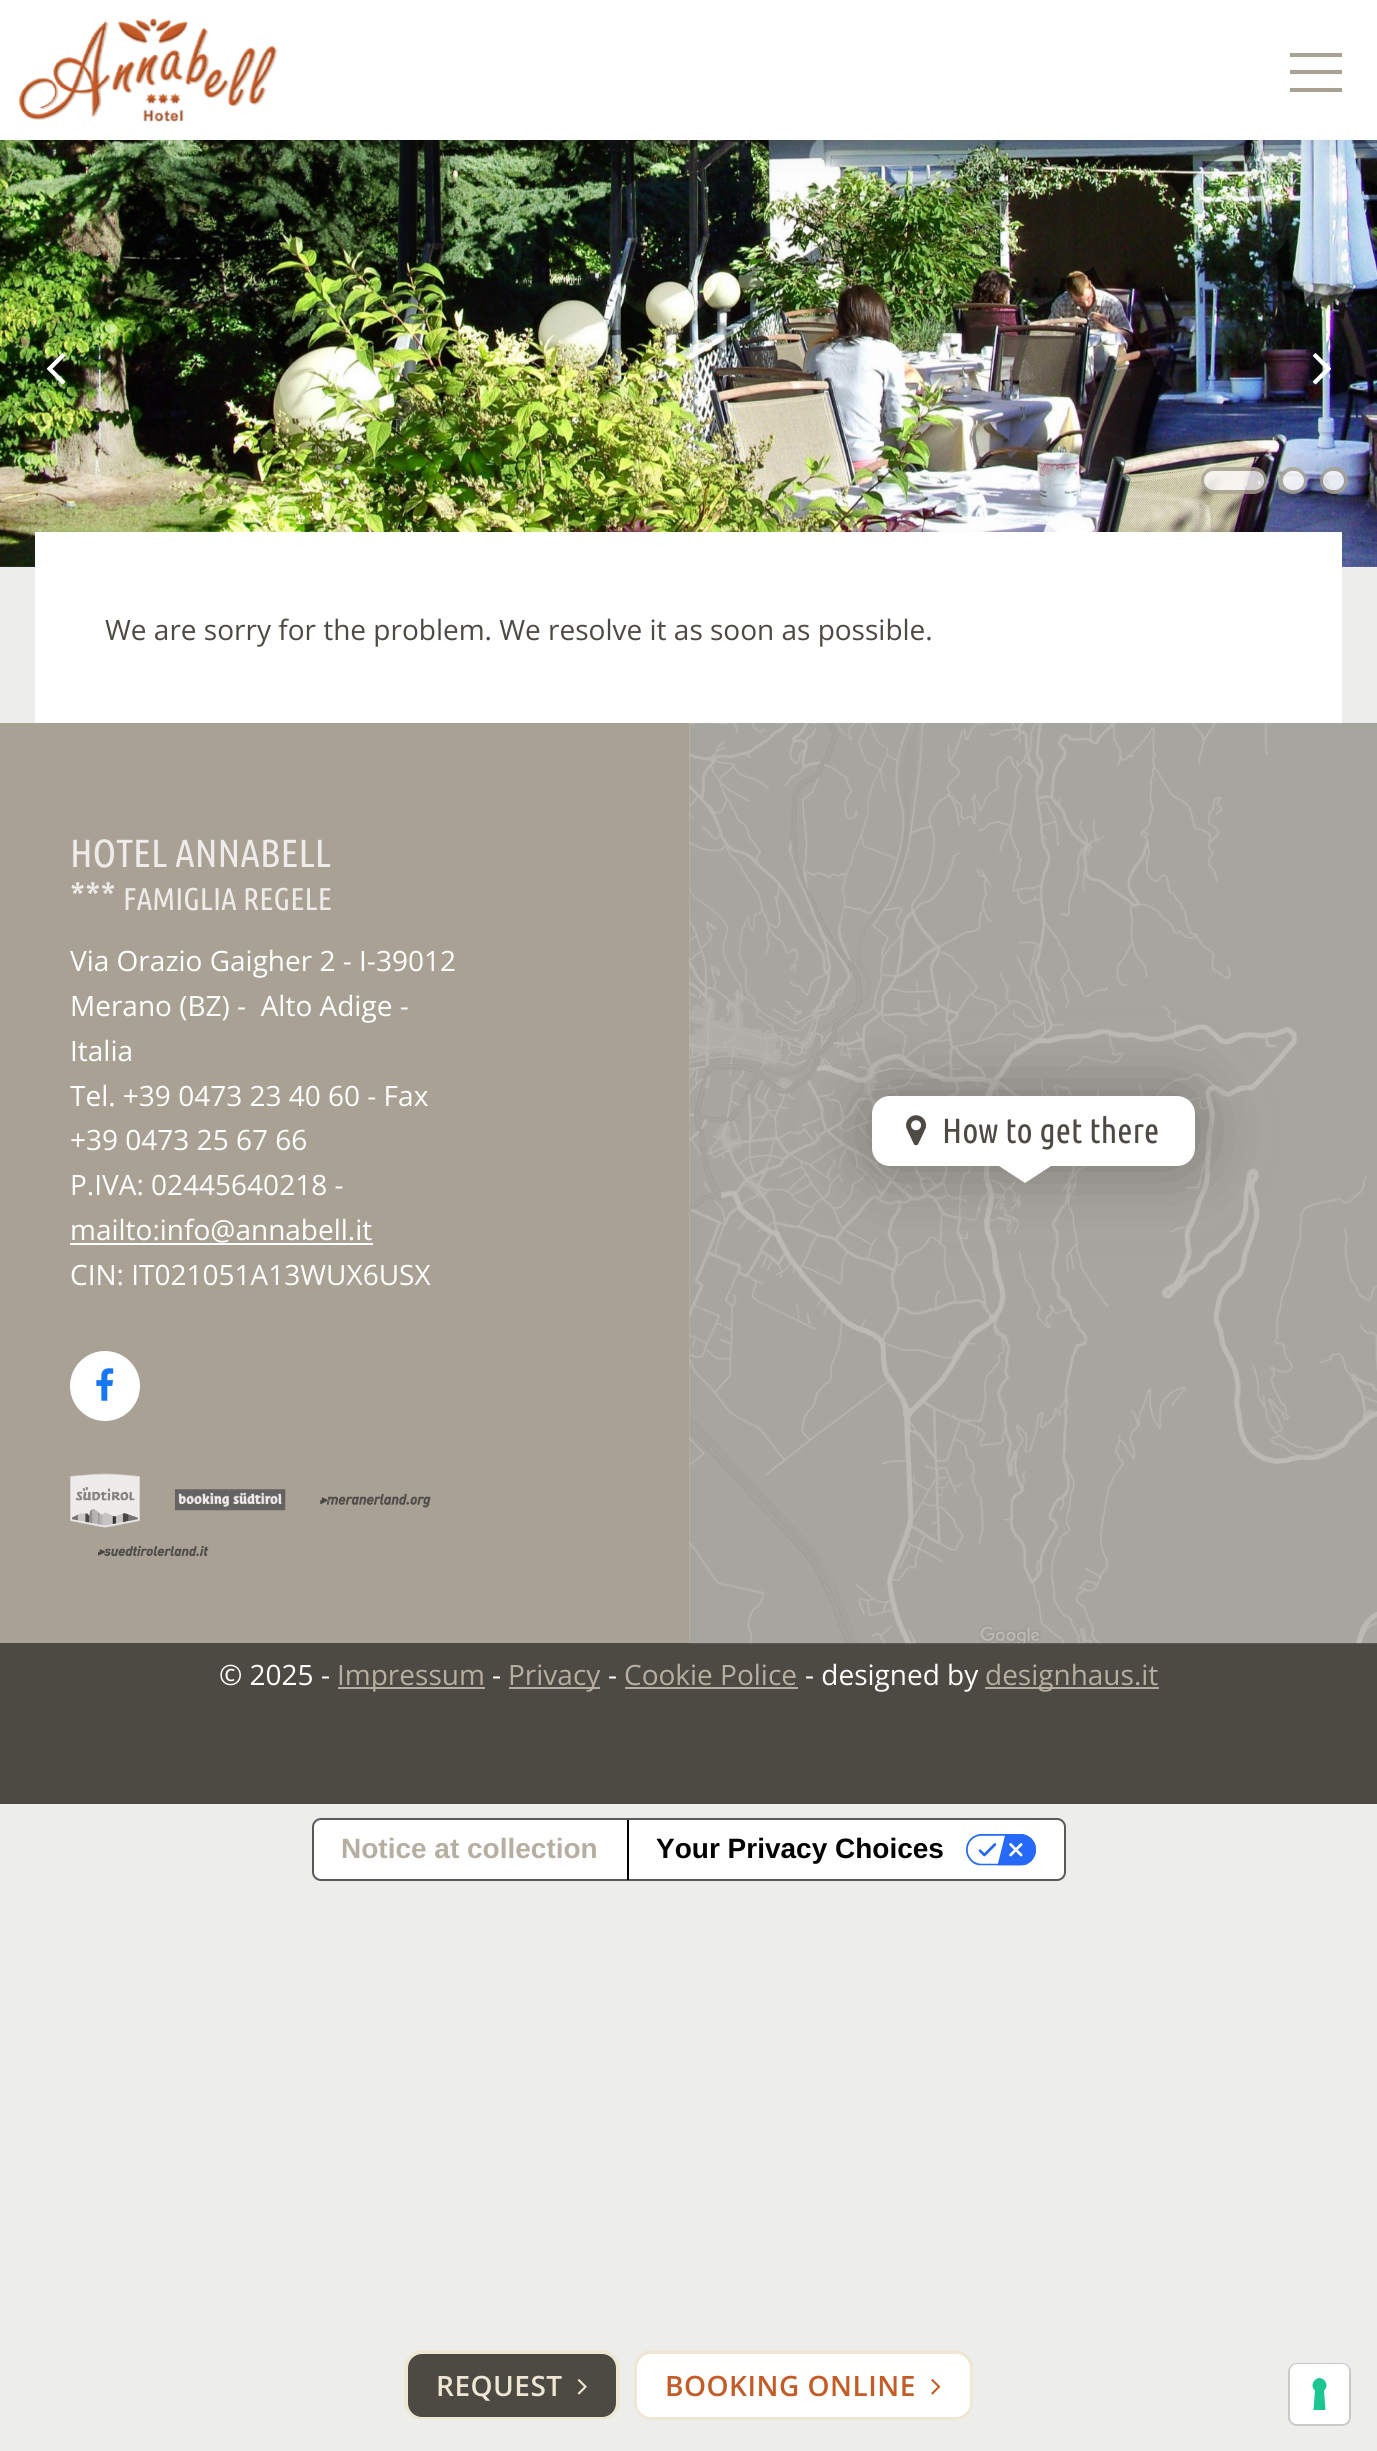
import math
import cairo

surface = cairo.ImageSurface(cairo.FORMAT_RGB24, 1377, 2451)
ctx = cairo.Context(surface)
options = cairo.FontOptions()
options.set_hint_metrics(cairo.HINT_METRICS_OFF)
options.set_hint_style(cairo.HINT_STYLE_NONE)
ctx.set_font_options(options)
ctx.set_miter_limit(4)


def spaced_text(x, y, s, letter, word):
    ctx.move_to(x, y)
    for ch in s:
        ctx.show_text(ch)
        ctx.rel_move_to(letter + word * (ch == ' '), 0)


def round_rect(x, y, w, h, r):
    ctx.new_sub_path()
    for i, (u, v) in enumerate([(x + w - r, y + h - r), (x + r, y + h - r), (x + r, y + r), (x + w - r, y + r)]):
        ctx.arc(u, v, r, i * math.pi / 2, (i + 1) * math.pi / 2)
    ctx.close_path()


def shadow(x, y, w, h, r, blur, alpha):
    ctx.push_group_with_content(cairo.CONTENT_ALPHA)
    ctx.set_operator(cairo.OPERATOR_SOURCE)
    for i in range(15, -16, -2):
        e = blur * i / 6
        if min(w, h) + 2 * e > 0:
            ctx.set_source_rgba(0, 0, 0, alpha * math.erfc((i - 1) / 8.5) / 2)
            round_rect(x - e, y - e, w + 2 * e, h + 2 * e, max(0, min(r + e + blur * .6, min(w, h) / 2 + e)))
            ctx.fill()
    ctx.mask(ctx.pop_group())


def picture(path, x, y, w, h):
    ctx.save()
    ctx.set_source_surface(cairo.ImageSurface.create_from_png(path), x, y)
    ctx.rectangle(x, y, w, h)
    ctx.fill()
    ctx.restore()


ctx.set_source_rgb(0.929, 0.929, 0.925)
ctx.paint()
picture("img2.png", 0, 140, 1377, 427)
ctx.set_source_rgb(0.302, 0.286, 0.263)
shadow(0, 0, 1377, 140, 0, 28, 0.1)
ctx.set_source_rgb(1, 1, 1)
ctx.rectangle(0, 0, 1377, 140)
ctx.fill()
picture("img1.png", 18, 18, 260, 104)
ctx.set_source_rgb(0.659, 0.631, 0.58)
ctx.rectangle(1290, 53, 52, 4)
ctx.fill()
ctx.rectangle(1290, 70, 52, 4)
ctx.fill()
ctx.rectangle(1290, 88, 52, 4)
ctx.fill()
picture("img3.png", 46, 353, 20, 32)
picture("img4.png", 1312, 353, 20, 32)
round_rect(1203, 469, 62, 23, 11.5)
ctx.set_source_rgba(0.659, 0.631, 0.58, 0.8)
ctx.set_line_width(4)
ctx.stroke()
ctx.set_source_rgba(1, 1, 1, 0.8)
round_rect(1204, 471, 60, 19, 9.5)
ctx.fill()
round_rect(1281, 469, 24, 23, 11.5)
ctx.set_source_rgba(0.659, 0.631, 0.58, 0.8)
ctx.stroke()
ctx.set_source_rgba(1, 1, 1, 0.8)
round_rect(1283, 471, 21, 19, 9.5)
ctx.fill()
round_rect(1322, 469, 24, 23, 11.5)
ctx.set_source_rgba(0.659, 0.631, 0.58, 0.8)
ctx.stroke()
ctx.set_source_rgba(1, 1, 1, 0.8)
round_rect(1323, 471, 21, 19, 9.5)
ctx.fill()
ctx.set_source_rgb(0.659, 0.631, 0.58)
ctx.rectangle(0, 723, 690, 920)
ctx.fill()
ctx.set_source_rgb(0.49, 0.471, 0.431)
ctx.rectangle(690, 723, 687, 920)
ctx.fill()
ctx.set_source_rgb(0.302, 0.286, 0.263)
ctx.rectangle(0, 1643, 1377, 161)
ctx.fill()
picture("img10.png", 689, 722, 688, 922)
ctx.set_source_rgb(1, 1, 1)
ctx.rectangle(35, 532, 1307, 191)
ctx.fill()
ctx.select_font_face("Open Sans")
ctx.set_font_size(28)
ctx.set_source_rgb(0.302, 0.286, 0.263)
ctx.move_to(105, 640)
ctx.show_text("We are sorry for the problem. We resolve it as soon as possible.")
ctx.select_font_face("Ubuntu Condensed")
ctx.set_font_size(39.25)
ctx.set_source_rgb(0.933, 0.925, 0.918)
ctx.move_to(70, 867)
ctx.show_text("HOTEL ANNABELL")
ctx.move_to(70, 910)
ctx.show_text("***")
ctx.set_font_size(31.5)
ctx.move_to(123, 910)
ctx.show_text("FAMIGLIA REGELE")
ctx.select_font_face("Open Sans")
ctx.set_font_size(28)
ctx.set_source_rgb(1, 1, 1)
ctx.move_to(70, 971)
ctx.show_text("Via Orazio Gaigher 2 - I-39012")
ctx.move_to(70, 1016)
ctx.show_text("Merano (BZ) -  Alto Adige -")
ctx.move_to(70, 1061)
ctx.show_text("Italia")
ctx.move_to(70, 1106)
ctx.show_text("Tel. +39 0473 23 40 60 - Fax")
ctx.move_to(70, 1150)
ctx.show_text("+39 0473 25 67 66")
ctx.move_to(70, 1195)
ctx.show_text("P.IVA: 02445640218 -")
ctx.move_to(70, 1240)
ctx.show_text("mailto:info@annabell.it")
ctx.rectangle(70, 1243, 303, 2)
ctx.fill()
ctx.move_to(70, 1285)
ctx.show_text("CIN: IT021051A13WUX6USX")
ctx.new_path()
ctx.arc(105, 1386, 35, 0, 2 * math.pi)
ctx.fill()
picture("img5.png", 96, 1368, 18, 33)
picture("img6.png", 70, 1473, 70, 55)
picture("img7.png", 175, 1489, 111, 22)
picture("img8.png", 320, 1493, 111, 15)
picture("img9.png", 98, 1545, 111, 12)
ctx.set_source_rgb(0.302, 0.286, 0.263)
shadow(872, 1096, 323, 70, 18, 35, 0.5)
ctx.set_source_rgb(1, 1, 1)
round_rect(872, 1096, 323, 70, 18)
ctx.fill()
picture("img11.png", 906, 1115, 21, 31)
ctx.select_font_face("Ubuntu Condensed")
ctx.set_font_size(35)
ctx.set_source_rgb(0.302, 0.286, 0.263)
ctx.move_to(942, 1143)
ctx.show_text("How to get there")
ctx.set_source_rgb(1, 1, 1)
ctx.new_path()
ctx.move_to(999, 1166)
ctx.line_to(1051, 1166)
ctx.line_to(1025, 1183)
ctx.close_path()
ctx.fill()
ctx.select_font_face("Open Sans")
ctx.set_font_size(28)
ctx.move_to(219, 1685)
ctx.show_text("© 2025 -")
ctx.set_source_rgb(0.714, 0.686, 0.631)
ctx.rectangle(338, 1687, 147, 2)
ctx.fill()
ctx.move_to(337, 1685)
ctx.show_text("Impressum")
ctx.set_source_rgb(1, 1, 1)
ctx.move_to(492, 1685)
ctx.show_text("-")
ctx.set_source_rgb(0.714, 0.686, 0.631)
ctx.rectangle(509, 1687, 91, 2)
ctx.fill()
ctx.move_to(508, 1685)
ctx.show_text("Privacy")
ctx.set_source_rgb(1, 1, 1)
ctx.move_to(608, 1685)
ctx.show_text("-")
ctx.set_source_rgb(0.714, 0.686, 0.631)
ctx.move_to(624, 1685)
ctx.show_text("Cookie Police")
ctx.rectangle(625, 1687, 173, 2)
ctx.fill()
ctx.set_source_rgb(1, 1, 1)
ctx.move_to(805, 1685)
ctx.show_text("- designed by")
ctx.set_source_rgb(0.714, 0.686, 0.631)
ctx.rectangle(985, 1687, 174, 2)
ctx.fill()
ctx.move_to(985, 1685)
ctx.show_text("designhaus.it")
ctx.set_source_rgb(1, 1, 1)
round_rect(313, 1819, 752, 61, 8)
ctx.fill_preserve()
ctx.set_source_rgb(0.349, 0.349, 0.349)
ctx.set_line_width(2)
ctx.stroke()
ctx.select_font_face("Liberation Sans", cairo.FONT_SLANT_NORMAL, cairo.FONT_WEIGHT_BOLD)
ctx.set_source_rgb(0.714, 0.686, 0.631)
ctx.move_to(341, 1858)
ctx.show_text("Notice at collection")
ctx.set_source_rgb(0, 0, 0)
ctx.rectangle(627, 1820, 2, 60)
ctx.fill()
ctx.move_to(656, 1858)
ctx.show_text("Your Privacy Choices")
picture("img12.png", 966, 1834, 70, 32)
round_rect(406, 2352, 212, 66, 16)
ctx.set_source_rgb(0.933, 0.906, 0.827)
ctx.set_line_width(4)
ctx.stroke()
ctx.set_source_rgb(0.302, 0.286, 0.263)
round_rect(408, 2354, 208, 63, 14)
ctx.fill()
ctx.select_font_face("Open Sans SemiBold")
ctx.set_source_rgb(0.933, 0.906, 0.827)
spaced_text(436, 2396, "REQUEST", 0.5, 0)
picture("img13.png", 577, 2379, 10, 16)
round_rect(636, 2352, 335, 66, 16)
ctx.stroke()
ctx.set_source_rgb(1, 1, 1)
round_rect(637, 2354, 333, 63, 14)
ctx.fill()
ctx.set_source_rgb(0.765, 0.361, 0.149)
spaced_text(665, 2396, "BOOKING ONLINE", 0.5, 0)
picture("img14.png", 931, 2379, 10, 16)
round_rect(1289, 2364, 61, 61, 8)
ctx.set_source_rgb(0.788, 0.788, 0.788)
ctx.set_line_width(2)
ctx.stroke()
ctx.set_source_rgb(1, 1, 1)
round_rect(1290, 2364, 59, 60, 7)
ctx.fill()
ctx.set_source_rgb(0.11, 0.776, 0.569)
ctx.set_fill_rule(cairo.FILL_RULE_EVEN_ODD)
ctx.new_path()
ctx.move_to(1319.5, 2378)
ctx.curve_to(1326, 2378.5, 1329, 2386.5, 1324, 2390.5)
ctx.line_to(1325.5, 2410)
ctx.line_to(1313.5, 2410)
ctx.line_to(1315, 2390.5)
ctx.curve_to(1310, 2386.5, 1313, 2378.5, 1319.5, 2378)
ctx.close_path()
ctx.fill()
surface.write_to_png("page.png")
